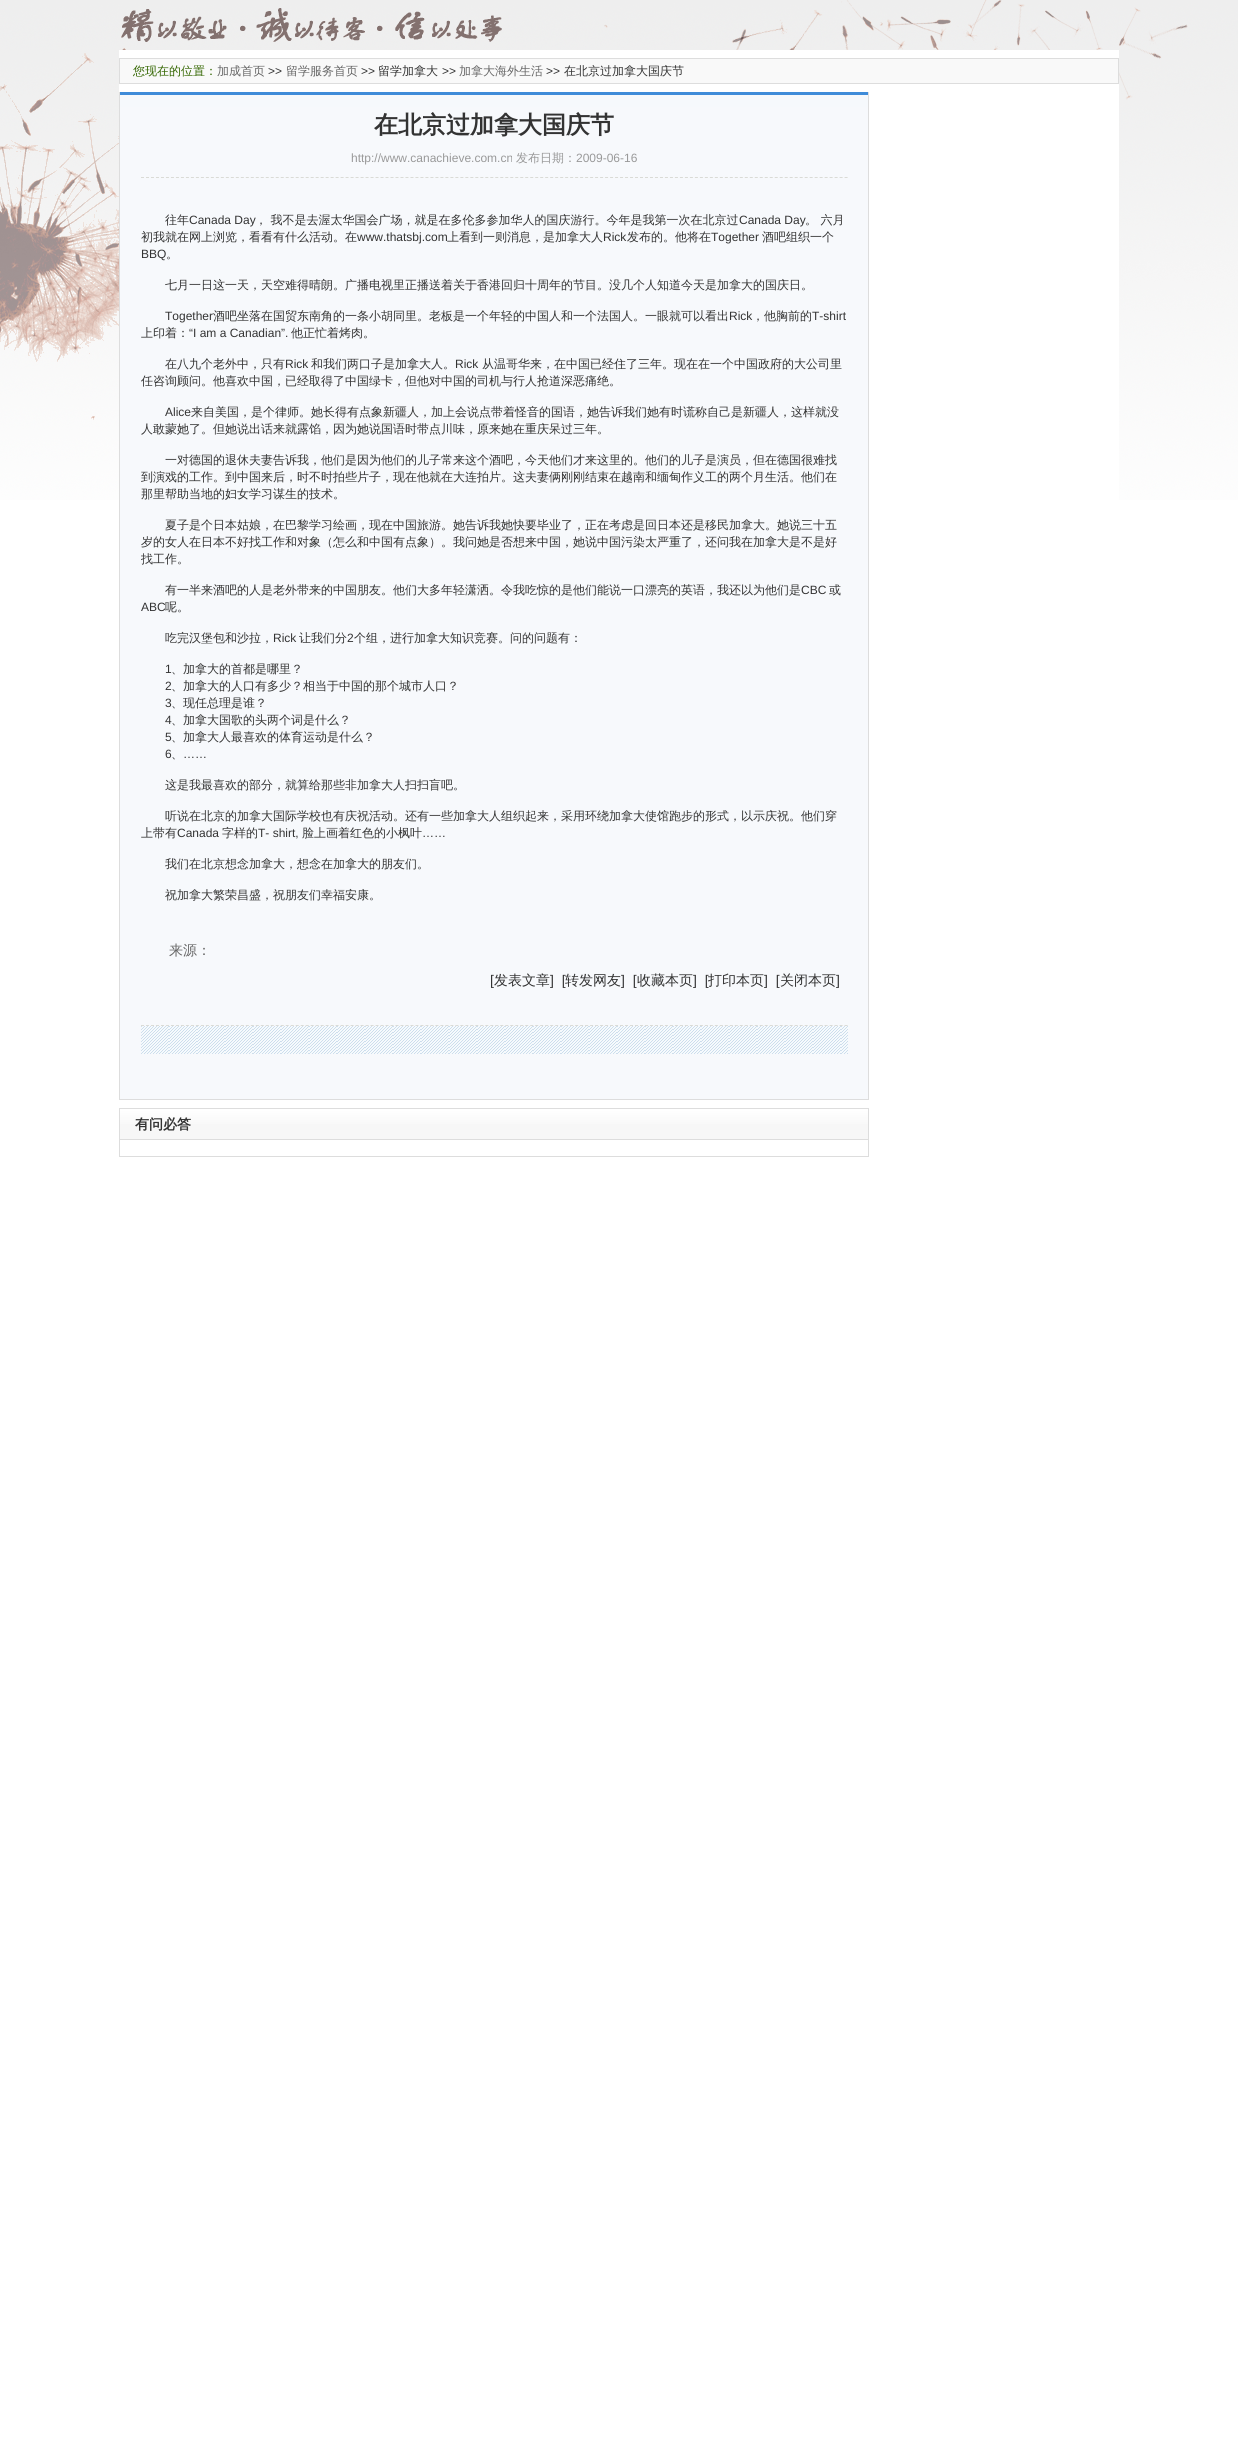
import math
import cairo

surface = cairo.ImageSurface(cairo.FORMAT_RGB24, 1238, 2452)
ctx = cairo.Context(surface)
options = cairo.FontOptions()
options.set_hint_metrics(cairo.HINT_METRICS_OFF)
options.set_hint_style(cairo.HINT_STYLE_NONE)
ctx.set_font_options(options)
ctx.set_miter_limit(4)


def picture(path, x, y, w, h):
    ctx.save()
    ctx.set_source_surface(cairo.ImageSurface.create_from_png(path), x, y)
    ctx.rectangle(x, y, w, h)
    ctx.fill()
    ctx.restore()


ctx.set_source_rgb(1, 1, 1)
ctx.paint()
picture("img1.png", 0, 0, 1238, 500)
ctx.set_source_rgb(1, 1, 1)
ctx.rectangle(119, 50, 1000, 450)
ctx.fill()
ctx.set_source_rgb(0.973, 0.973, 0.973)
ctx.rectangle(119.5, 58.5, 999, 25)
ctx.fill_preserve()
ctx.set_source_rgb(0.867, 0.867, 0.867)
ctx.set_line_width(1)
ctx.stroke()
ctx.select_font_face("WenQuanYi Zen Hei Medium")
ctx.set_font_size(12)
ctx.set_source_rgb(0.2, 0.4, 0)
ctx.move_to(133, 75)
ctx.show_text("您现在的位置：")
ctx.set_source_rgb(0.4, 0.4, 0.4)
ctx.move_to(217, 75)
ctx.show_text("加成首页")
ctx.select_font_face("Liberation Sans")
ctx.set_source_rgb(0.2, 0.2, 0.2)
ctx.move_to(268, 75)
ctx.show_text(">>")
ctx.select_font_face("WenQuanYi Zen Hei Medium")
ctx.set_source_rgb(0.4, 0.4, 0.4)
ctx.move_to(286, 75)
ctx.show_text("留学服务首页")
ctx.select_font_face("Liberation Sans")
ctx.set_source_rgb(0.2, 0.2, 0.2)
ctx.move_to(361, 75)
ctx.show_text(">>")
ctx.select_font_face("WenQuanYi Zen Hei Medium")
ctx.move_to(378, 75)
ctx.show_text("留学加拿大")
ctx.select_font_face("Liberation Sans")
ctx.move_to(442, 75)
ctx.show_text(">>")
ctx.select_font_face("WenQuanYi Zen Hei Medium")
ctx.set_source_rgb(0.4, 0.4, 0.4)
ctx.move_to(459, 75)
ctx.show_text("加拿大海外生活")
ctx.select_font_face("Liberation Sans")
ctx.set_source_rgb(0.2, 0.2, 0.2)
ctx.move_to(546, 75)
ctx.show_text(">>")
ctx.select_font_face("WenQuanYi Zen Hei Medium")
ctx.move_to(564, 75)
ctx.show_text("在北京过加拿大国庆节")
ctx.set_source_rgb(0.867, 0.867, 0.867)
ctx.rectangle(868, 92, 1, 1008)
ctx.fill()
ctx.rectangle(119, 1099, 750, 1)
ctx.fill()
ctx.rectangle(119, 92, 1, 1008)
ctx.fill()
picture("img2.png", 120, 92, 748, 15)
ctx.set_source_rgb(0.965, 0.976, 0.988)
ctx.rectangle(120, 107, 748, 992)
ctx.fill()
ctx.new_path()
ctx.move_to(141, 177.5)
ctx.line_to(848, 177.5)
ctx.set_source_rgb(0.855, 0.859, 0.839)
ctx.set_dash([3, 1.99])
ctx.stroke()
ctx.select_font_face("WenQuanYi Zen Hei", cairo.FONT_SLANT_NORMAL, cairo.FONT_WEIGHT_BOLD)
ctx.set_font_size(24)
ctx.set_source_rgb(0.2, 0.2, 0.2)
ctx.move_to(374, 133)
ctx.show_text("在北京过加拿大国庆节")
ctx.select_font_face("Liberation Sans")
ctx.set_font_size(12)
ctx.set_source_rgb(0.6, 0.6, 0.6)
ctx.move_to(351, 162)
ctx.show_text("http://www.canachieve.com.cn")
ctx.select_font_face("WenQuanYi Zen Hei Medium")
ctx.move_to(516, 162)
ctx.show_text("发布日期：")
ctx.select_font_face("Liberation Sans")
ctx.move_to(576, 162)
ctx.show_text("2009-06-16")
ctx.new_path()
ctx.move_to(141, 1025.5)
ctx.line_to(848, 1025.5)
ctx.set_source_rgb(0.855, 0.859, 0.839)
ctx.stroke()
ctx.select_font_face("WenQuanYi Zen Hei Medium")
ctx.set_source_rgb(0.2, 0.2, 0.2)
ctx.move_to(165, 224)
ctx.show_text("往年")
ctx.select_font_face("Liberation Sans")
ctx.move_to(189, 224)
ctx.show_text("Canada Day")
ctx.select_font_face("WenQuanYi Zen Hei Medium")
ctx.move_to(255, 224)
ctx.show_text("， 我不是去渥太华国会广场，就是在多伦多参加华人的国庆游行。今年是我第一次在北京过")
ctx.select_font_face("Liberation Sans")
ctx.move_to(739, 224)
ctx.show_text("Canada Day")
ctx.select_font_face("WenQuanYi Zen Hei Medium")
ctx.move_to(805, 224)
ctx.show_text("。 六月")
ctx.move_to(141, 241)
ctx.show_text("初我就在网上浏览，看看有什么活动。在")
ctx.select_font_face("Liberation Sans")
ctx.move_to(357, 241)
ctx.show_text("www.thatsbj.com")
ctx.select_font_face("WenQuanYi Zen Hei Medium")
ctx.move_to(447, 241)
ctx.show_text("上看到一则消息，是加拿大人")
ctx.select_font_face("Liberation Sans")
ctx.move_to(603, 241)
ctx.show_text("Rick")
ctx.select_font_face("WenQuanYi Zen Hei Medium")
ctx.move_to(627, 241)
ctx.show_text("发布的。他将在")
ctx.select_font_face("Liberation Sans")
ctx.move_to(711, 241)
ctx.show_text("Together")
ctx.select_font_face("WenQuanYi Zen Hei Medium")
ctx.move_to(762, 241)
ctx.show_text("酒吧组织一个")
ctx.select_font_face("Liberation Sans")
ctx.move_to(141, 258)
ctx.show_text("BBQ")
ctx.select_font_face("WenQuanYi Zen Hei Medium")
ctx.move_to(166, 258)
ctx.show_text("。")
ctx.move_to(165, 289)
ctx.show_text("七月一日这一天，天空难得晴朗。广播电视里正播送着关于香港回归十周年的节目。没几个人知道今天是加拿大的国庆日。")
ctx.select_font_face("Liberation Sans")
ctx.move_to(165, 320)
ctx.show_text("Together")
ctx.select_font_face("WenQuanYi Zen Hei Medium")
ctx.move_to(213, 320)
ctx.show_text("酒吧坐落在国贸东南角的一条小胡同里。老板是一个年轻的中国人和一个法国人。一眼就可以看出")
ctx.select_font_face("Liberation Sans")
ctx.move_to(729, 320)
ctx.show_text("Rick")
ctx.select_font_face("WenQuanYi Zen Hei Medium")
ctx.move_to(752, 320)
ctx.show_text("，他胸前的")
ctx.select_font_face("Liberation Sans")
ctx.move_to(812, 320)
ctx.show_text("T-shirt")
ctx.select_font_face("WenQuanYi Zen Hei Medium")
ctx.move_to(141, 337)
ctx.show_text("上印着：")
ctx.select_font_face("Liberation Sans")
ctx.move_to(189, 337)
ctx.show_text("“I am a Canadian”.")
ctx.select_font_face("WenQuanYi Zen Hei Medium")
ctx.move_to(291, 337)
ctx.show_text("他正忙着烤肉。")
ctx.move_to(165, 368)
ctx.show_text("在八九个老外中，只有")
ctx.select_font_face("Liberation Sans")
ctx.move_to(285, 368)
ctx.show_text("Rick")
ctx.select_font_face("WenQuanYi Zen Hei Medium")
ctx.move_to(311, 368)
ctx.show_text("和我们两口子是加拿大人。")
ctx.select_font_face("Liberation Sans")
ctx.move_to(455, 368)
ctx.show_text("Rick")
ctx.select_font_face("WenQuanYi Zen Hei Medium")
ctx.move_to(482, 368)
ctx.show_text("从温哥华来，在中国已经住了三年。现在在一个中国政府的大公司里")
ctx.move_to(141, 385)
ctx.show_text("任咨询顾问。他喜欢中国，已经取得了中国绿卡，但他对中国的司机与行人抢道深恶痛绝。")
ctx.select_font_face("Liberation Sans")
ctx.move_to(165, 416)
ctx.show_text("Alice")
ctx.select_font_face("WenQuanYi Zen Hei Medium")
ctx.move_to(191, 416)
ctx.show_text("来自美国，是个律师。她长得有点象新疆人，加上会说点带着怪音的国语，她告诉我们她有时谎称自己是新疆人，这样就没")
ctx.move_to(141, 433)
ctx.show_text("人敢蒙她了。但她说出话来就露馅，因为她说国语时带点川味，原来她在重庆呆过三年。")
ctx.move_to(165, 464)
ctx.show_text("一对德国的退休夫妻告诉我，他们是因为他们的儿子常来这个酒吧，今天他们才来这里的。他们的儿子是演员，但在德国很难找")
ctx.move_to(141, 481)
ctx.show_text("到演戏的工作。到中国来后，时不时拍些片子，现在他就在大连拍片。这夫妻俩刚刚结束在越南和缅甸作义工的两个月生活。他们在")
ctx.move_to(141, 498)
ctx.show_text("那里帮助当地的妇女学习谋生的技术。")
ctx.move_to(165, 529)
ctx.show_text("夏子是个日本姑娘，在巴黎学习绘画，现在中国旅游。她告诉我她快要毕业了，正在考虑是回日本还是移民加拿大。她说三十五")
ctx.move_to(141, 546)
ctx.show_text("岁的女人在日本不好找工作和对象（怎么和中国有点象）。我问她是否想来中国，她说中国污染太严重了，还问我在加拿大是不是好")
ctx.move_to(141, 563)
ctx.show_text("找工作。")
ctx.move_to(165, 594)
ctx.show_text("有一半来酒吧的人是老外带来的中国朋友。他们大多年轻潇洒。令我吃惊的是他们能说一口漂亮的英语，我还以为他们是")
ctx.select_font_face("Liberation Sans")
ctx.move_to(801, 594)
ctx.show_text("CBC")
ctx.select_font_face("WenQuanYi Zen Hei Medium")
ctx.move_to(829, 594)
ctx.show_text("或")
ctx.select_font_face("Liberation Sans")
ctx.move_to(141, 611)
ctx.show_text("ABC")
ctx.select_font_face("WenQuanYi Zen Hei Medium")
ctx.move_to(165, 611)
ctx.show_text("呢。")
ctx.move_to(165, 642)
ctx.show_text("吃完汉堡包和沙拉，")
ctx.select_font_face("Liberation Sans")
ctx.move_to(273, 642)
ctx.show_text("Rick")
ctx.select_font_face("WenQuanYi Zen Hei Medium")
ctx.move_to(299, 642)
ctx.show_text("让我们分")
ctx.select_font_face("Liberation Sans")
ctx.move_to(347, 642)
ctx.show_text("2")
ctx.select_font_face("WenQuanYi Zen Hei Medium")
ctx.move_to(354, 642)
ctx.show_text("个组，进行加拿大知识竞赛。问的问题有：")
ctx.select_font_face("Liberation Sans")
ctx.move_to(165, 673)
ctx.show_text("1")
ctx.select_font_face("WenQuanYi Zen Hei Medium")
ctx.move_to(171, 673)
ctx.show_text("、加拿大的首都是哪里？")
ctx.select_font_face("Liberation Sans")
ctx.move_to(165, 690)
ctx.show_text("2")
ctx.select_font_face("WenQuanYi Zen Hei Medium")
ctx.move_to(171, 690)
ctx.show_text("、加拿大的人口有多少？相当于中国的那个城市人口？")
ctx.select_font_face("Liberation Sans")
ctx.move_to(165, 707)
ctx.show_text("3")
ctx.select_font_face("WenQuanYi Zen Hei Medium")
ctx.move_to(171, 707)
ctx.show_text("、现任总理是谁？")
ctx.select_font_face("Liberation Sans")
ctx.move_to(165, 724)
ctx.show_text("4")
ctx.select_font_face("WenQuanYi Zen Hei Medium")
ctx.move_to(171, 724)
ctx.show_text("、加拿大国歌的头两个词是什么？")
ctx.select_font_face("Liberation Sans")
ctx.move_to(165, 741)
ctx.show_text("5")
ctx.select_font_face("WenQuanYi Zen Hei Medium")
ctx.move_to(171, 741)
ctx.show_text("、加拿大人最喜欢的体育运动是什么？")
ctx.select_font_face("Liberation Sans")
ctx.move_to(165, 758)
ctx.show_text("6")
ctx.select_font_face("WenQuanYi Zen Hei Medium")
ctx.move_to(171, 758)
ctx.show_text("、")
ctx.select_font_face("Liberation Sans")
ctx.move_to(183, 758)
ctx.show_text("……")
ctx.select_font_face("WenQuanYi Zen Hei Medium")
ctx.move_to(165, 789)
ctx.show_text("这是我最喜欢的部分，就算给那些非加拿大人扫扫盲吧。")
ctx.move_to(165, 820)
ctx.show_text("听说在北京的加拿大国际学校也有庆祝活动。还有一些加拿大人组织起来，采用环绕加拿大使馆跑步的形式，以示庆祝。他们穿")
ctx.move_to(141, 837)
ctx.show_text("上带有")
ctx.select_font_face("Liberation Sans")
ctx.move_to(177, 837)
ctx.show_text("Canada")
ctx.select_font_face("WenQuanYi Zen Hei Medium")
ctx.move_to(222, 837)
ctx.show_text("字样的")
ctx.select_font_face("Liberation Sans")
ctx.move_to(258, 837)
ctx.show_text("T- shirt,")
ctx.select_font_face("WenQuanYi Zen Hei Medium")
ctx.move_to(302, 837)
ctx.show_text("脸上画着红色的小枫叶")
ctx.select_font_face("Liberation Sans")
ctx.move_to(422, 837)
ctx.show_text("……")
ctx.select_font_face("WenQuanYi Zen Hei Medium")
ctx.move_to(165, 868)
ctx.show_text("我们在北京想念加拿大，想念在加拿大的朋友们。")
ctx.move_to(165, 899)
ctx.show_text("祝加拿大繁荣昌盛，祝朋友们幸福安康。")
ctx.set_font_size(14)
ctx.set_source_rgb(0.4, 0.4, 0.4)
ctx.move_to(169, 955)
ctx.show_text("来源：")
ctx.select_font_face("Liberation Sans")
ctx.set_source_rgb(0.2, 0.2, 0.2)
ctx.move_to(490, 985)
ctx.show_text("[")
ctx.select_font_face("WenQuanYi Zen Hei Medium")
ctx.move_to(494, 985)
ctx.show_text("发表文章")
ctx.select_font_face("Liberation Sans")
ctx.move_to(550, 985)
ctx.show_text("]  [")
ctx.select_font_face("WenQuanYi Zen Hei Medium")
ctx.move_to(565, 985)
ctx.show_text("转发网友")
ctx.select_font_face("Liberation Sans")
ctx.move_to(621, 985)
ctx.show_text("]  [")
ctx.select_font_face("WenQuanYi Zen Hei Medium")
ctx.move_to(637, 985)
ctx.show_text("收藏本页")
ctx.select_font_face("Liberation Sans")
ctx.move_to(693, 985)
ctx.show_text("]  [")
ctx.select_font_face("WenQuanYi Zen Hei Medium")
ctx.move_to(708, 985)
ctx.show_text("打印本页")
ctx.select_font_face("Liberation Sans")
ctx.move_to(764, 985)
ctx.show_text("]  [")
ctx.select_font_face("WenQuanYi Zen Hei Medium")
ctx.move_to(780, 985)
ctx.show_text("关闭本页")
ctx.select_font_face("Liberation Sans")
ctx.move_to(836, 985)
ctx.show_text("]")
picture("img3.png", 141, 1026, 707, 28)
ctx.set_source_rgb(0.867, 0.867, 0.867)
ctx.rectangle(868, 1108, 1, 49)
ctx.fill()
ctx.rectangle(119, 1156, 750, 1)
ctx.fill()
ctx.rectangle(119, 1108, 1, 49)
ctx.fill()
picture("img4.png", 120, 1108, 748, 32)
ctx.select_font_face("WenQuanYi Zen Hei", cairo.FONT_SLANT_NORMAL, cairo.FONT_WEIGHT_BOLD)
ctx.set_source_rgb(0.2, 0.2, 0.2)
ctx.move_to(135, 1129)
ctx.show_text("有问必答")
surface.write_to_png("page.png")
